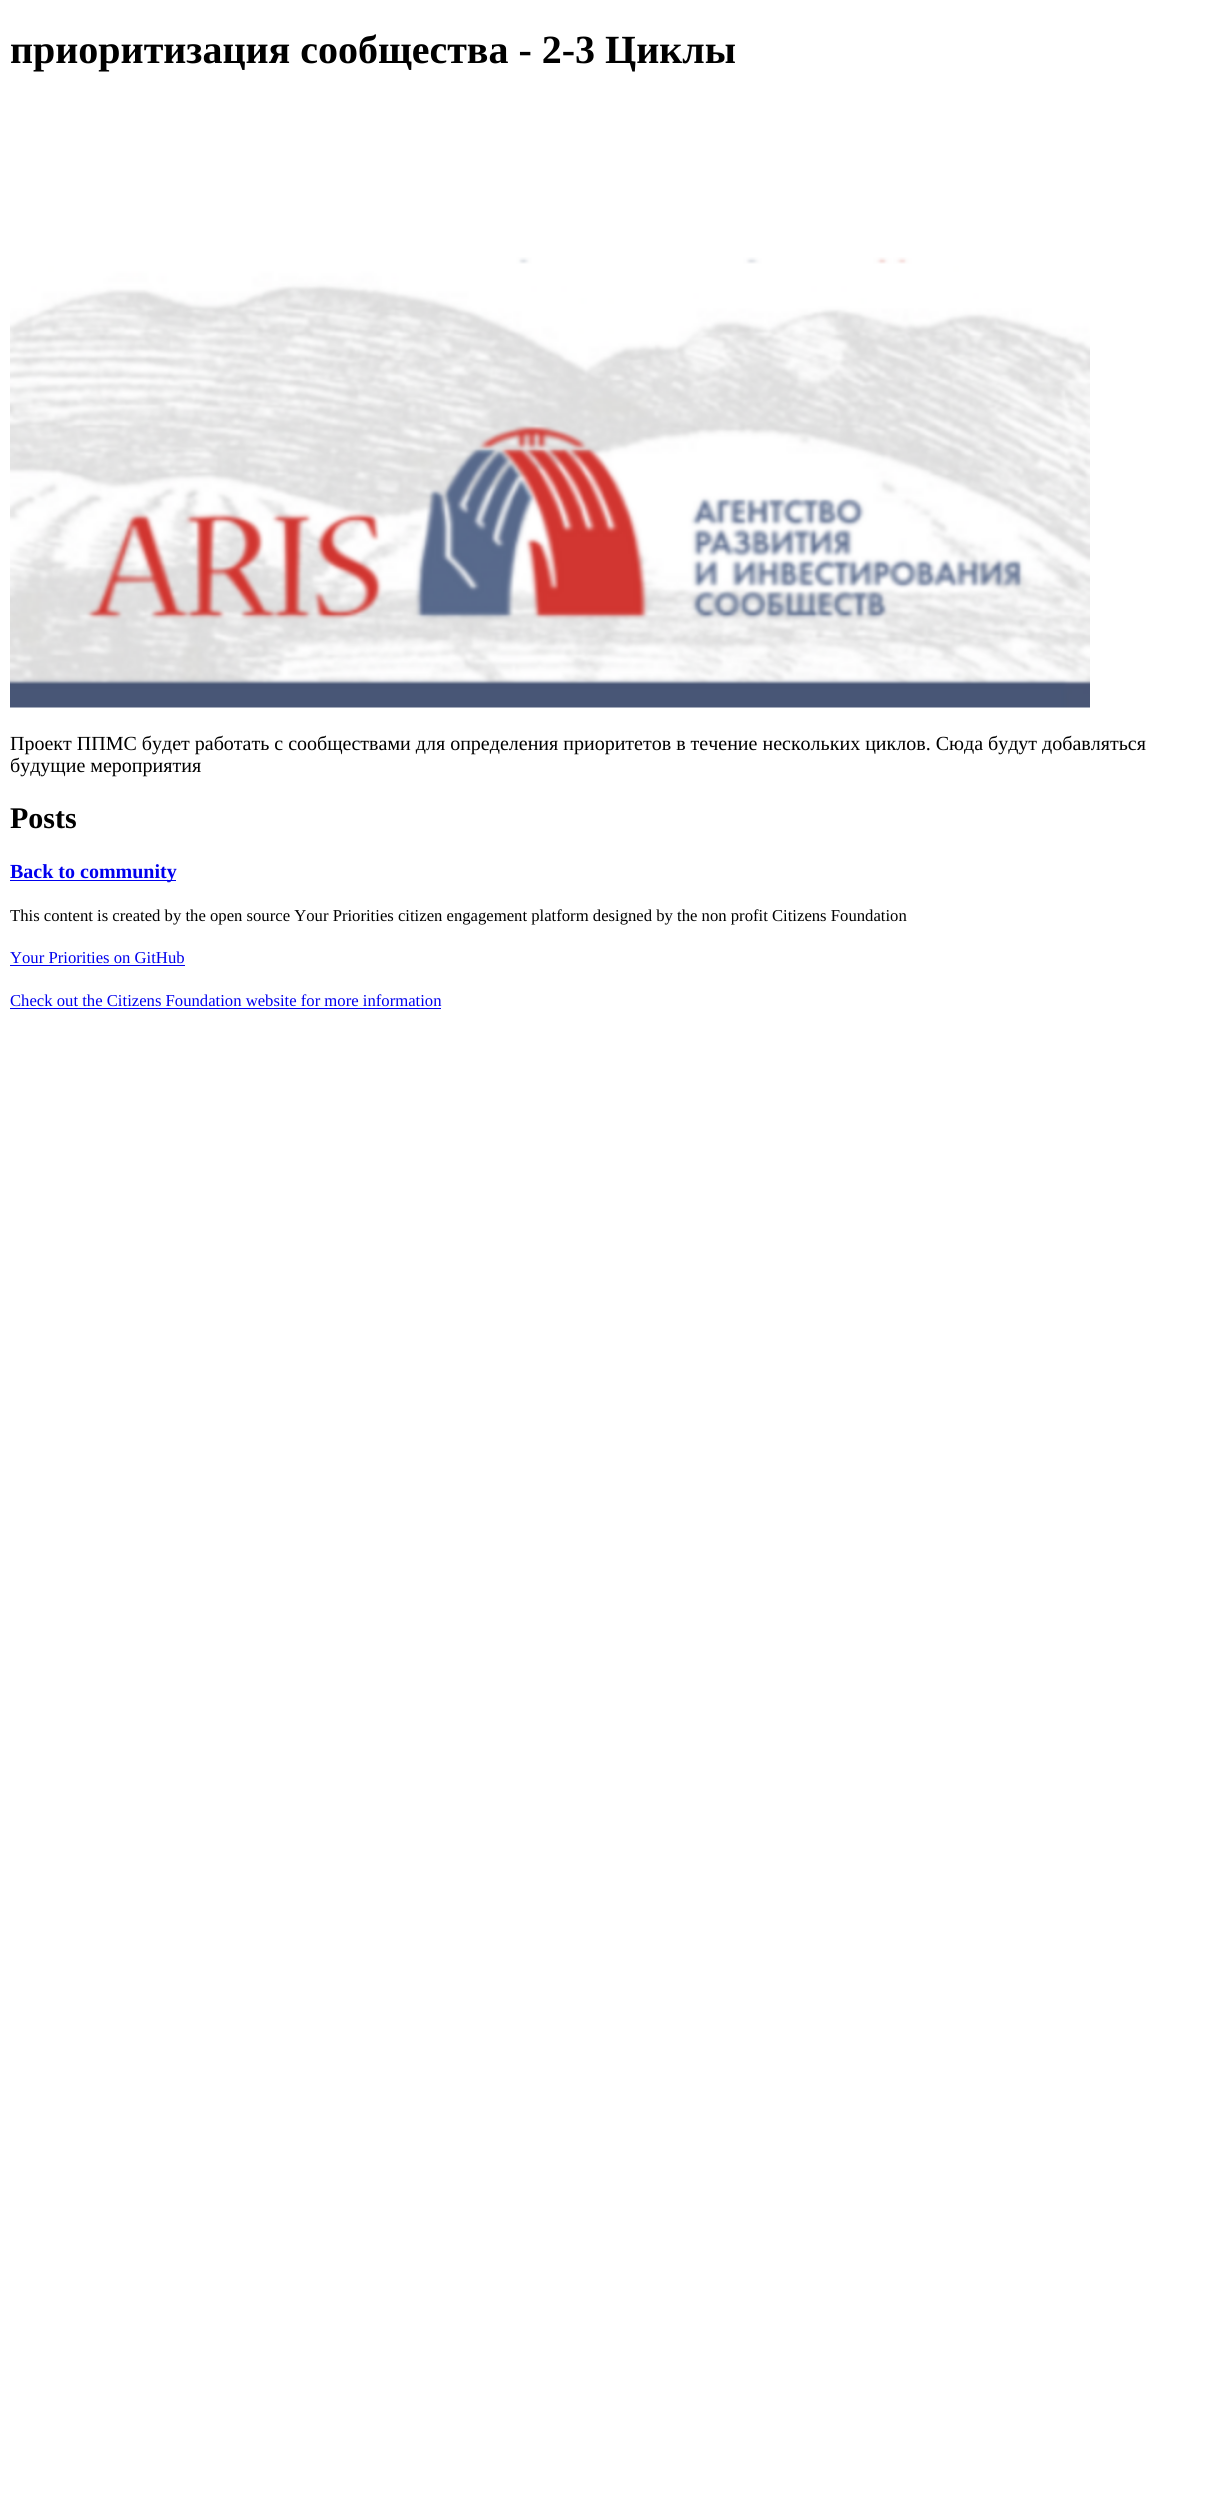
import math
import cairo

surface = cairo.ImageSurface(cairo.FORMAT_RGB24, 1214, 2499)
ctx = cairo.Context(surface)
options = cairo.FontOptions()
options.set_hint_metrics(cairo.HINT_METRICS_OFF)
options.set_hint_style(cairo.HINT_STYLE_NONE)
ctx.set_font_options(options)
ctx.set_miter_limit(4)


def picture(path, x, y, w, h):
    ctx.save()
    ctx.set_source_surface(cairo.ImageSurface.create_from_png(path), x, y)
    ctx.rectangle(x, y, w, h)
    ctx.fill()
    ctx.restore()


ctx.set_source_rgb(1, 1, 1)
ctx.paint()
ctx.select_font_face("Liberation Serif", cairo.FONT_SLANT_NORMAL, cairo.FONT_WEIGHT_BOLD)
ctx.set_font_size(40)
ctx.set_source_rgb(0, 0, 0)
ctx.move_to(10, 63)
ctx.show_text("приоритизация сообщества - 2-3 Циклы")
picture("img1.png", 10, 257, 1080, 451)
ctx.select_font_face("Liberation Serif")
ctx.set_font_size(20)
ctx.move_to(10, 750)
ctx.show_text("Проект ППМС будет работать с сообществами для определения приоритетов в течение нескольких циклов. Сюда будут добавляться")
ctx.move_to(10, 772)
ctx.show_text("будущие мероприятия")
ctx.select_font_face("Liberation Serif", cairo.FONT_SLANT_NORMAL, cairo.FONT_WEIGHT_BOLD)
ctx.set_font_size(30)
ctx.move_to(10, 828)
ctx.show_text("Posts")
ctx.set_source_rgb(0, 0, 0.933)
ctx.rectangle(10, 880, 166, 1)
ctx.fill()
ctx.set_font_size(20)
ctx.move_to(10, 878)
ctx.show_text("Back to community")
ctx.select_font_face("Liberation Serif")
ctx.set_font_size(16.67)
ctx.set_source_rgb(0, 0, 0)
ctx.move_to(10, 921)
ctx.show_text("This content is created by the open source Your Priorities citizen engagement platform designed by the non profit Citizens Foundation")
ctx.set_source_rgb(0, 0, 0.933)
ctx.move_to(10, 963)
ctx.show_text("Your Priorities on GitHub")
ctx.rectangle(10, 965, 175, 1)
ctx.fill()
ctx.move_to(10, 1006)
ctx.show_text("Check out the Citizens Foundation website for more information")
ctx.rectangle(10, 1008, 431, 1)
ctx.fill()
surface.write_to_png("page.png")
